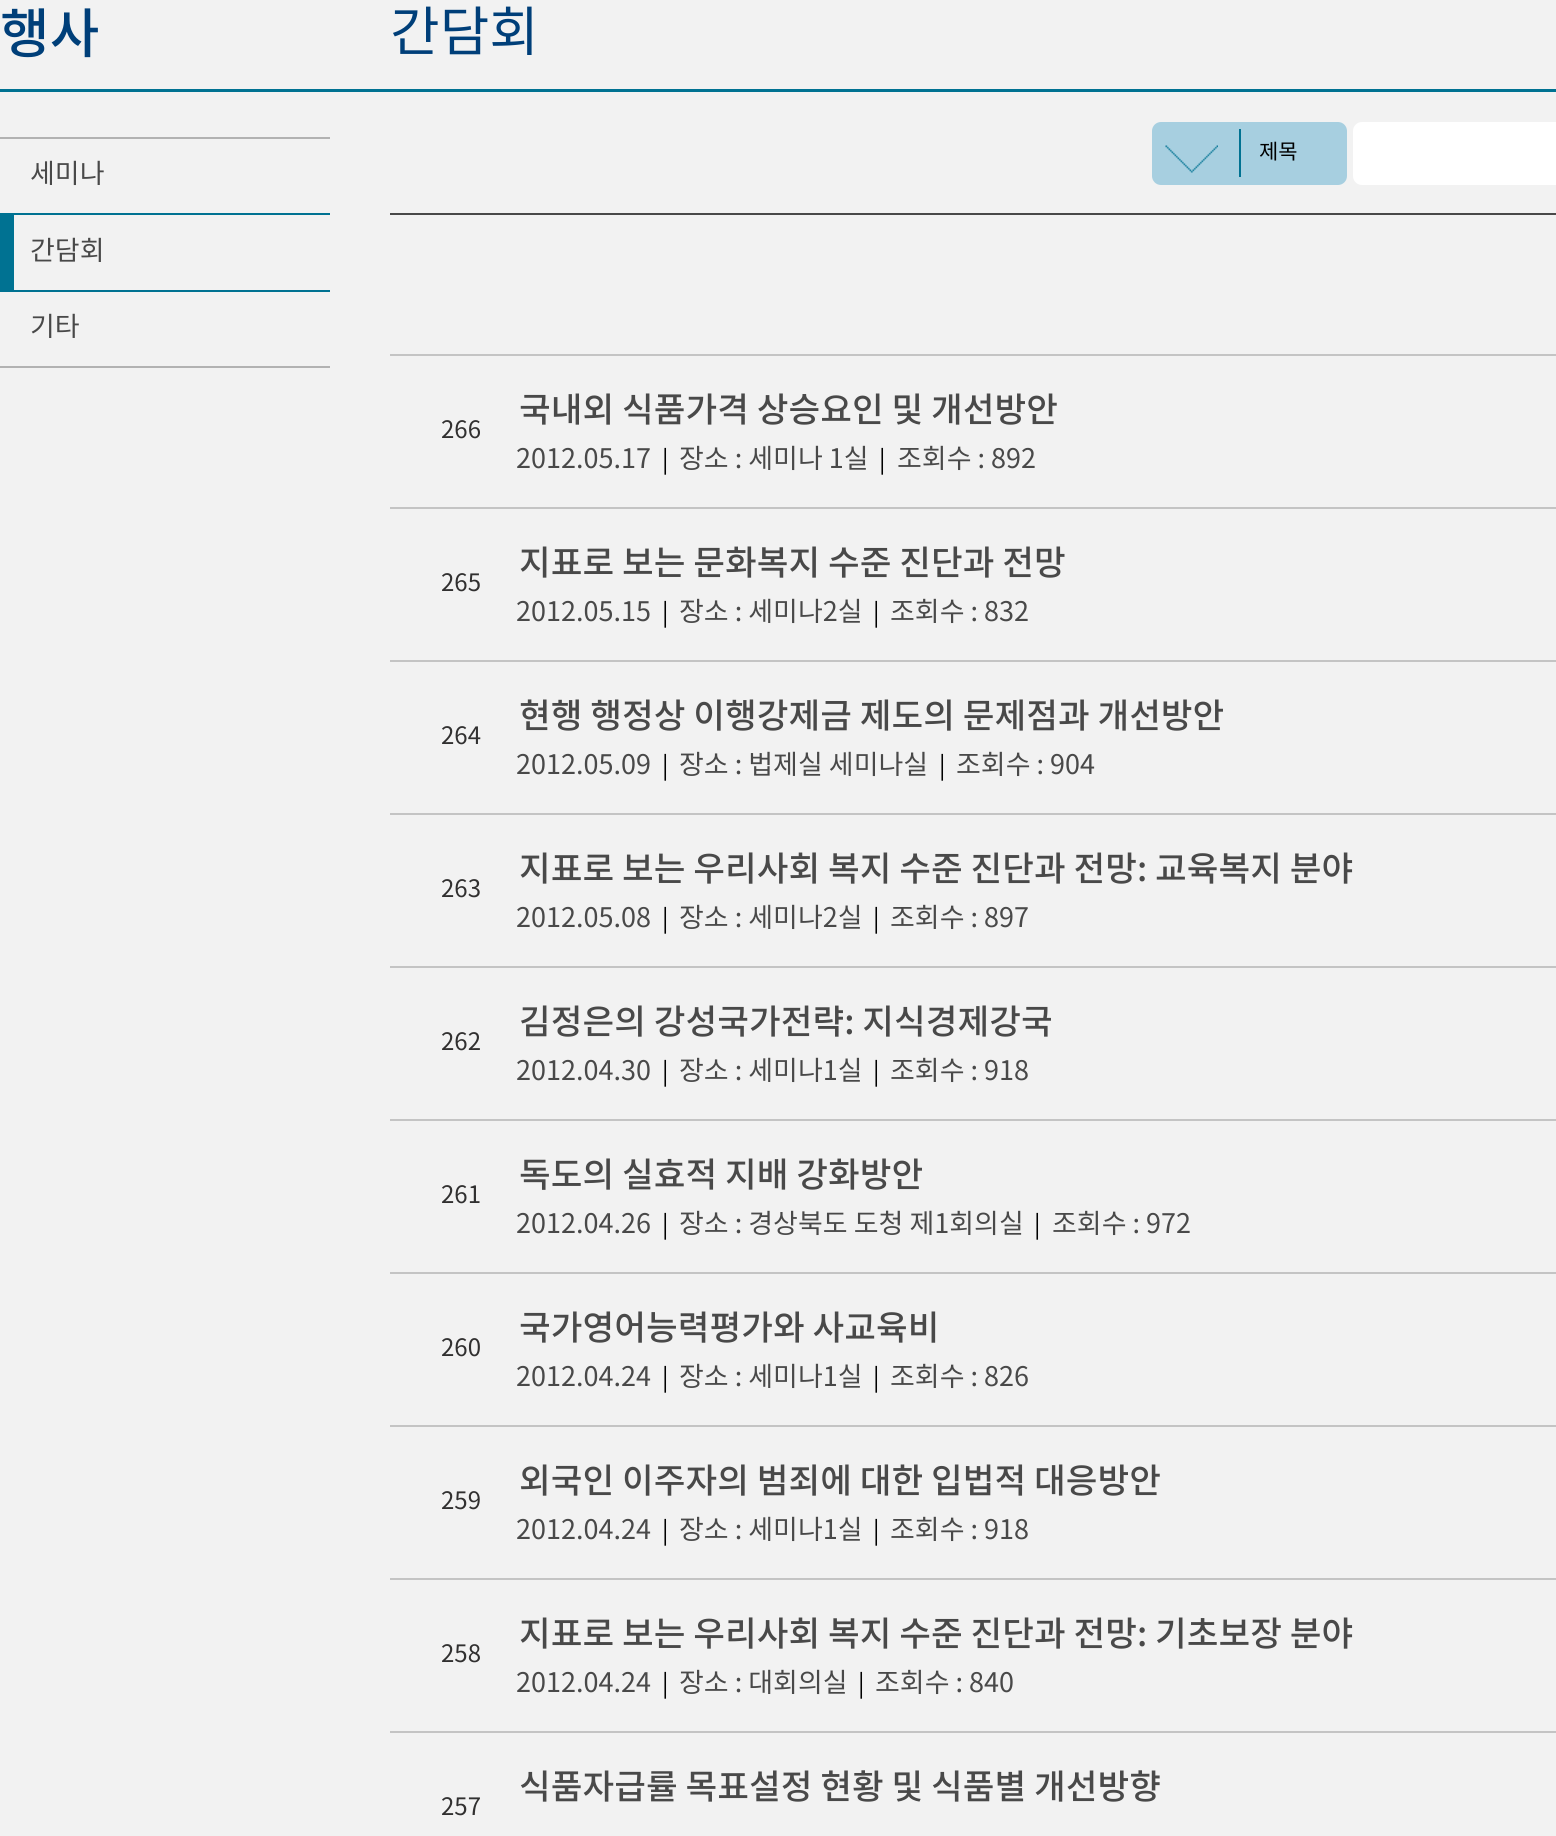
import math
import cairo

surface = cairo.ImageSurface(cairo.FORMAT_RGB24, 1556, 1836)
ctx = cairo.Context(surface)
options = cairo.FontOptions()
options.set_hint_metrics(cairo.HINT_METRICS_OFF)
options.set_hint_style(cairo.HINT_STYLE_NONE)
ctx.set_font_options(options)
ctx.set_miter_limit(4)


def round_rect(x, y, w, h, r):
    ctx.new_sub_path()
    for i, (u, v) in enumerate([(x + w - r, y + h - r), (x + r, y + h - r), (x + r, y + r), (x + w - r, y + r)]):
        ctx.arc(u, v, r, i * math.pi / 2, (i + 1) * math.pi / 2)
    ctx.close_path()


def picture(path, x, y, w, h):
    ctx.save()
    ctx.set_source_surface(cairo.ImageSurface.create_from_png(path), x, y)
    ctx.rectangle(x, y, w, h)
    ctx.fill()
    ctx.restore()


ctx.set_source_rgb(0.949, 0.949, 0.949)
ctx.paint()
ctx.set_source_rgb(0, 0.447, 0.573)
ctx.rectangle(0, 89, 390, 3)
ctx.fill()
ctx.select_font_face("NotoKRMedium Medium")
ctx.set_font_size(54)
ctx.set_source_rgb(0, 0.247, 0.475)
ctx.move_to(0, 53)
ctx.show_text("행사")
ctx.set_source_rgb(0.698, 0.698, 0.698)
ctx.rectangle(0, 137, 330, 2)
ctx.fill()
ctx.select_font_face("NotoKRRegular")
ctx.set_font_size(27)
ctx.set_source_rgb(0.286, 0.286, 0.286)
ctx.move_to(30, 183)
ctx.show_text("세미나")
ctx.set_source_rgb(0, 0.447, 0.573)
ctx.rectangle(0, 213, 330, 2)
ctx.fill()
ctx.rectangle(0, 290, 330, 2)
ctx.fill()
ctx.rectangle(0, 215, 14, 75)
ctx.fill()
ctx.set_source_rgb(0.286, 0.286, 0.286)
ctx.move_to(30, 260)
ctx.show_text("간담회")
ctx.set_source_rgb(0.698, 0.698, 0.698)
ctx.rectangle(0, 366, 330, 2)
ctx.fill()
ctx.set_source_rgb(0.286, 0.286, 0.286)
ctx.move_to(30, 336)
ctx.show_text("기타")
ctx.set_source_rgb(0, 0.447, 0.573)
ctx.rectangle(390, 89, 1166, 3)
ctx.fill()
ctx.set_font_size(54)
ctx.set_source_rgb(0, 0.247, 0.475)
ctx.move_to(390, 51)
ctx.show_text("간담회")
ctx.set_source_rgb(0.286, 0.286, 0.286)
ctx.rectangle(390, 213, 1166, 2)
ctx.fill()
ctx.set_source_rgb(0.655, 0.812, 0.878)
round_rect(1152, 122, 195, 63, 9)
ctx.fill()
picture("img1.png", 1165, 145, 53, 28)
ctx.set_source_rgb(0, 0.447, 0.573)
ctx.rectangle(1239, 129, 2, 48)
ctx.fill()
ctx.set_font_size(21)
ctx.set_source_rgb(0, 0, 0)
ctx.move_to(1259, 159)
ctx.show_text("제목")
ctx.set_source_rgb(1, 1, 1)
round_rect(1353, 122, 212, 63, 9)
ctx.fill()
ctx.set_source_rgb(0.769, 0.769, 0.769)
ctx.rectangle(390, 354, 1166, 2)
ctx.fill()
ctx.rectangle(390, 507, 1166, 2)
ctx.fill()
ctx.set_font_size(24)
ctx.set_source_rgb(0.192, 0.188, 0.188)
ctx.move_to(441, 438)
ctx.show_text("266")
ctx.select_font_face("NotoKRMedium Medium")
ctx.set_font_size(34.5)
ctx.set_source_rgb(0.286, 0.286, 0.286)
ctx.move_to(519, 422)
ctx.show_text("국내외 식품가격 상승요인 및 개선방안")
ctx.select_font_face("NotoKRRegular")
ctx.set_font_size(27)
ctx.move_to(516, 468)
ctx.show_text("2012.05.17")
ctx.set_font_size(24)
ctx.set_source_rgb(0, 0, 0)
ctx.move_to(662, 468)
ctx.show_text("|")
ctx.set_font_size(27)
ctx.set_source_rgb(0.286, 0.286, 0.286)
ctx.move_to(679, 468)
ctx.show_text("장소 : 세미나 1실")
ctx.set_font_size(24)
ctx.set_source_rgb(0, 0, 0)
ctx.move_to(879, 468)
ctx.show_text("|")
ctx.set_font_size(27)
ctx.set_source_rgb(0.286, 0.286, 0.286)
ctx.move_to(897, 468)
ctx.show_text("조회수 : 892")
ctx.set_source_rgb(0.769, 0.769, 0.769)
ctx.rectangle(390, 660, 1166, 2)
ctx.fill()
ctx.set_font_size(24)
ctx.set_source_rgb(0.192, 0.188, 0.188)
ctx.move_to(441, 591)
ctx.show_text("265")
ctx.select_font_face("NotoKRMedium Medium")
ctx.set_font_size(34.5)
ctx.set_source_rgb(0.286, 0.286, 0.286)
ctx.move_to(519, 575)
ctx.show_text("지표로 보는 문화복지 수준 진단과 전망")
ctx.select_font_face("NotoKRRegular")
ctx.set_font_size(27)
ctx.move_to(516, 621)
ctx.show_text("2012.05.15")
ctx.set_font_size(24)
ctx.set_source_rgb(0, 0, 0)
ctx.move_to(662, 621)
ctx.show_text("|")
ctx.set_font_size(27)
ctx.set_source_rgb(0.286, 0.286, 0.286)
ctx.move_to(679, 621)
ctx.show_text("장소 : 세미나2실")
ctx.set_font_size(24)
ctx.set_source_rgb(0, 0, 0)
ctx.move_to(873, 621)
ctx.show_text("|")
ctx.set_font_size(27)
ctx.set_source_rgb(0.286, 0.286, 0.286)
ctx.move_to(890, 621)
ctx.show_text("조회수 : 832")
ctx.set_source_rgb(0.769, 0.769, 0.769)
ctx.rectangle(390, 813, 1166, 2)
ctx.fill()
ctx.set_font_size(24)
ctx.set_source_rgb(0.192, 0.188, 0.188)
ctx.move_to(441, 744)
ctx.show_text("264")
ctx.select_font_face("NotoKRMedium Medium")
ctx.set_font_size(34.5)
ctx.set_source_rgb(0.286, 0.286, 0.286)
ctx.move_to(519, 728)
ctx.show_text("현행 행정상 이행강제금 제도의 문제점과 개선방안")
ctx.select_font_face("NotoKRRegular")
ctx.set_font_size(27)
ctx.move_to(516, 774)
ctx.show_text("2012.05.09")
ctx.set_font_size(24)
ctx.set_source_rgb(0, 0, 0)
ctx.move_to(662, 774)
ctx.show_text("|")
ctx.set_font_size(27)
ctx.set_source_rgb(0.286, 0.286, 0.286)
ctx.move_to(679, 774)
ctx.show_text("장소 : 법제실 세미나실")
ctx.set_font_size(24)
ctx.set_source_rgb(0, 0, 0)
ctx.move_to(939, 774)
ctx.show_text("|")
ctx.set_font_size(27)
ctx.set_source_rgb(0.286, 0.286, 0.286)
ctx.move_to(956, 774)
ctx.show_text("조회수 : 904")
ctx.set_source_rgb(0.769, 0.769, 0.769)
ctx.rectangle(390, 966, 1166, 2)
ctx.fill()
ctx.set_font_size(24)
ctx.set_source_rgb(0.192, 0.188, 0.188)
ctx.move_to(441, 897)
ctx.show_text("263")
ctx.select_font_face("NotoKRMedium Medium")
ctx.set_font_size(34.5)
ctx.set_source_rgb(0.286, 0.286, 0.286)
ctx.move_to(519, 881)
ctx.show_text("지표로 보는 우리사회 복지 수준 진단과 전망: 교육복지 분야")
ctx.select_font_face("NotoKRRegular")
ctx.set_font_size(27)
ctx.move_to(516, 927)
ctx.show_text("2012.05.08")
ctx.set_font_size(24)
ctx.set_source_rgb(0, 0, 0)
ctx.move_to(662, 927)
ctx.show_text("|")
ctx.set_font_size(27)
ctx.set_source_rgb(0.286, 0.286, 0.286)
ctx.move_to(679, 927)
ctx.show_text("장소 : 세미나2실")
ctx.set_font_size(24)
ctx.set_source_rgb(0, 0, 0)
ctx.move_to(873, 927)
ctx.show_text("|")
ctx.set_font_size(27)
ctx.set_source_rgb(0.286, 0.286, 0.286)
ctx.move_to(890, 927)
ctx.show_text("조회수 : 897")
ctx.set_source_rgb(0.769, 0.769, 0.769)
ctx.rectangle(390, 1119, 1166, 2)
ctx.fill()
ctx.set_font_size(24)
ctx.set_source_rgb(0.192, 0.188, 0.188)
ctx.move_to(441, 1050)
ctx.show_text("262")
ctx.select_font_face("NotoKRMedium Medium")
ctx.set_font_size(34.5)
ctx.set_source_rgb(0.286, 0.286, 0.286)
ctx.move_to(519, 1034)
ctx.show_text("김정은의 강성국가전략: 지식경제강국")
ctx.select_font_face("NotoKRRegular")
ctx.set_font_size(27)
ctx.move_to(516, 1080)
ctx.show_text("2012.04.30")
ctx.set_font_size(24)
ctx.set_source_rgb(0, 0, 0)
ctx.move_to(662, 1080)
ctx.show_text("|")
ctx.set_font_size(27)
ctx.set_source_rgb(0.286, 0.286, 0.286)
ctx.move_to(679, 1080)
ctx.show_text("장소 : 세미나1실")
ctx.set_font_size(24)
ctx.set_source_rgb(0, 0, 0)
ctx.move_to(873, 1080)
ctx.show_text("|")
ctx.set_font_size(27)
ctx.set_source_rgb(0.286, 0.286, 0.286)
ctx.move_to(890, 1080)
ctx.show_text("조회수 : 918")
ctx.set_source_rgb(0.769, 0.769, 0.769)
ctx.rectangle(390, 1272, 1166, 2)
ctx.fill()
ctx.set_font_size(24)
ctx.set_source_rgb(0.192, 0.188, 0.188)
ctx.move_to(441, 1203)
ctx.show_text("261")
ctx.select_font_face("NotoKRMedium Medium")
ctx.set_font_size(34.5)
ctx.set_source_rgb(0.286, 0.286, 0.286)
ctx.move_to(519, 1187)
ctx.show_text("독도의 실효적 지배 강화방안")
ctx.select_font_face("NotoKRRegular")
ctx.set_font_size(27)
ctx.move_to(516, 1233)
ctx.show_text("2012.04.26")
ctx.set_font_size(24)
ctx.set_source_rgb(0, 0, 0)
ctx.move_to(662, 1233)
ctx.show_text("|")
ctx.set_font_size(27)
ctx.set_source_rgb(0.286, 0.286, 0.286)
ctx.move_to(679, 1233)
ctx.show_text("장소 : 경상북도 도청 제1회의실")
ctx.set_font_size(24)
ctx.set_source_rgb(0, 0, 0)
ctx.move_to(1034, 1233)
ctx.show_text("|")
ctx.set_font_size(27)
ctx.set_source_rgb(0.286, 0.286, 0.286)
ctx.move_to(1052, 1233)
ctx.show_text("조회수 : 972")
ctx.set_source_rgb(0.769, 0.769, 0.769)
ctx.rectangle(390, 1425, 1166, 2)
ctx.fill()
ctx.set_font_size(24)
ctx.set_source_rgb(0.192, 0.188, 0.188)
ctx.move_to(441, 1356)
ctx.show_text("260")
ctx.select_font_face("NotoKRMedium Medium")
ctx.set_font_size(34.5)
ctx.set_source_rgb(0.286, 0.286, 0.286)
ctx.move_to(519, 1340)
ctx.show_text("국가영어능력평가와 사교육비")
ctx.select_font_face("NotoKRRegular")
ctx.set_font_size(27)
ctx.move_to(516, 1386)
ctx.show_text("2012.04.24")
ctx.set_font_size(24)
ctx.set_source_rgb(0, 0, 0)
ctx.move_to(662, 1386)
ctx.show_text("|")
ctx.set_font_size(27)
ctx.set_source_rgb(0.286, 0.286, 0.286)
ctx.move_to(679, 1386)
ctx.show_text("장소 : 세미나1실")
ctx.set_font_size(24)
ctx.set_source_rgb(0, 0, 0)
ctx.move_to(873, 1386)
ctx.show_text("|")
ctx.set_font_size(27)
ctx.set_source_rgb(0.286, 0.286, 0.286)
ctx.move_to(890, 1386)
ctx.show_text("조회수 : 826")
ctx.set_source_rgb(0.769, 0.769, 0.769)
ctx.rectangle(390, 1578, 1166, 2)
ctx.fill()
ctx.set_font_size(24)
ctx.set_source_rgb(0.192, 0.188, 0.188)
ctx.move_to(441, 1509)
ctx.show_text("259")
ctx.select_font_face("NotoKRMedium Medium")
ctx.set_font_size(34.5)
ctx.set_source_rgb(0.286, 0.286, 0.286)
ctx.move_to(519, 1493)
ctx.show_text("외국인 이주자의 범죄에 대한 입법적 대응방안")
ctx.select_font_face("NotoKRRegular")
ctx.set_font_size(27)
ctx.move_to(516, 1539)
ctx.show_text("2012.04.24")
ctx.set_font_size(24)
ctx.set_source_rgb(0, 0, 0)
ctx.move_to(662, 1539)
ctx.show_text("|")
ctx.set_font_size(27)
ctx.set_source_rgb(0.286, 0.286, 0.286)
ctx.move_to(679, 1539)
ctx.show_text("장소 : 세미나1실")
ctx.set_font_size(24)
ctx.set_source_rgb(0, 0, 0)
ctx.move_to(873, 1539)
ctx.show_text("|")
ctx.set_font_size(27)
ctx.set_source_rgb(0.286, 0.286, 0.286)
ctx.move_to(890, 1539)
ctx.show_text("조회수 : 918")
ctx.set_source_rgb(0.769, 0.769, 0.769)
ctx.rectangle(390, 1731, 1166, 2)
ctx.fill()
ctx.set_font_size(24)
ctx.set_source_rgb(0.192, 0.188, 0.188)
ctx.move_to(441, 1662)
ctx.show_text("258")
ctx.select_font_face("NotoKRMedium Medium")
ctx.set_font_size(34.5)
ctx.set_source_rgb(0.286, 0.286, 0.286)
ctx.move_to(519, 1646)
ctx.show_text("지표로 보는 우리사회 복지 수준 진단과 전망: 기초보장 분야")
ctx.select_font_face("NotoKRRegular")
ctx.set_font_size(27)
ctx.move_to(516, 1692)
ctx.show_text("2012.04.24")
ctx.set_font_size(24)
ctx.set_source_rgb(0, 0, 0)
ctx.move_to(662, 1692)
ctx.show_text("|")
ctx.set_font_size(27)
ctx.set_source_rgb(0.286, 0.286, 0.286)
ctx.move_to(679, 1692)
ctx.show_text("장소 : 대회의실")
ctx.set_font_size(24)
ctx.set_source_rgb(0, 0, 0)
ctx.move_to(858, 1692)
ctx.show_text("|")
ctx.set_font_size(27)
ctx.set_source_rgb(0.286, 0.286, 0.286)
ctx.move_to(875, 1692)
ctx.show_text("조회수 : 840")
ctx.select_font_face("NotoKRMedium Medium")
ctx.set_font_size(34.5)
ctx.move_to(519, 1799)
ctx.show_text("식품자급률 목표설정 현황 및 식품별 개선방향")
ctx.select_font_face("NotoKRRegular")
ctx.set_font_size(24)
ctx.set_source_rgb(0.192, 0.188, 0.188)
ctx.move_to(441, 1815)
ctx.show_text("257")
surface.write_to_png("page.png")
